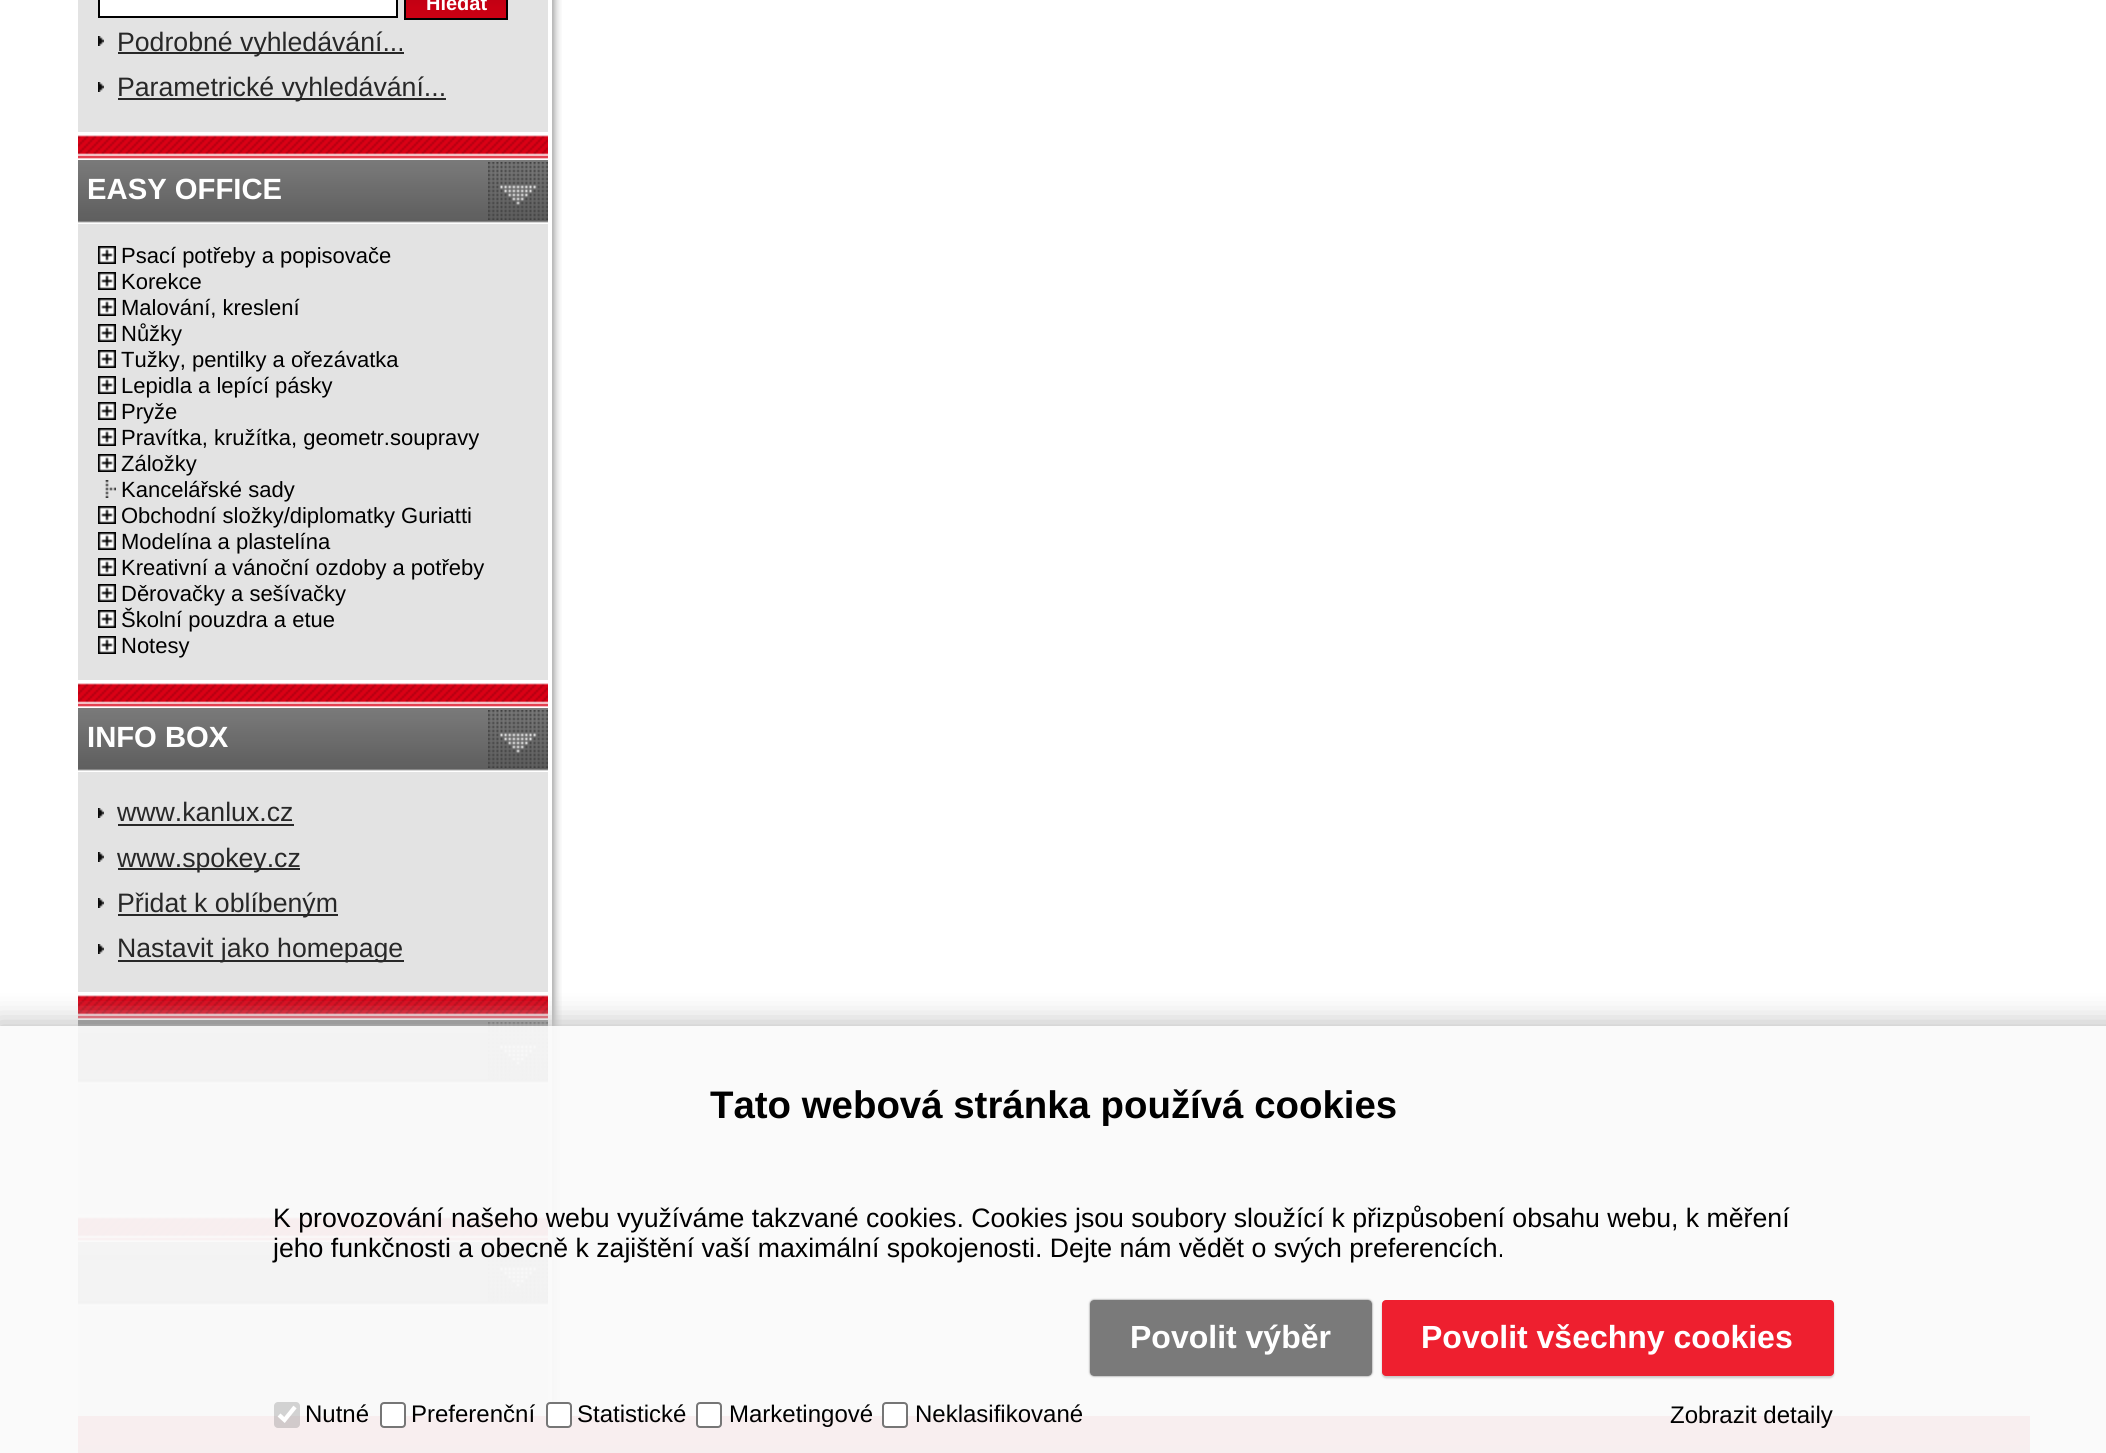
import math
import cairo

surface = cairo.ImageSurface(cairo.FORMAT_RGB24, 2106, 1453)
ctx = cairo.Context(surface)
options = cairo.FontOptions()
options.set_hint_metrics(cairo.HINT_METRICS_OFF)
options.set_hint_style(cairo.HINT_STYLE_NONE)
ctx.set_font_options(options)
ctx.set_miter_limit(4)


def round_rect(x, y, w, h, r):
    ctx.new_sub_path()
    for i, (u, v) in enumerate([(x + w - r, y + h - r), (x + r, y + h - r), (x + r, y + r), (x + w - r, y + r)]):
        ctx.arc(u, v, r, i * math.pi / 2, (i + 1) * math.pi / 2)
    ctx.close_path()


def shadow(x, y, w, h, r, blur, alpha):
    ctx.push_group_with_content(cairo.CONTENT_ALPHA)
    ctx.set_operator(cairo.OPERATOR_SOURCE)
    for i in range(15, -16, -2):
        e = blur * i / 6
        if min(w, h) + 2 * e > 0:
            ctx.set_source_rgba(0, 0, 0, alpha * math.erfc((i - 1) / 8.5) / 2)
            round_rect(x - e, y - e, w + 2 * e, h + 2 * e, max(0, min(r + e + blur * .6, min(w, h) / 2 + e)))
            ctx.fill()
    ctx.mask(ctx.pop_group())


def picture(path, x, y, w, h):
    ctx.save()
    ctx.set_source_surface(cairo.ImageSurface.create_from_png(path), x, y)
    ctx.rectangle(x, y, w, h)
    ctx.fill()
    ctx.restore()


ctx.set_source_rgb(1, 1, 1)
ctx.paint()
ctx.set_source_rgb(0.89, 0.89, 0.89)
ctx.rectangle(78, 0, 470, 1416)
ctx.fill()
ctx.set_source_rgb(1, 1, 1)
ctx.rectangle(99, -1, 298, 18)
ctx.fill_preserve()
ctx.set_source_rgb(0, 0, 0)
ctx.stroke()
picture("img1.png", 406, 0, 100, 18)
ctx.rectangle(405, -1, 102, 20)
ctx.stroke()
ctx.select_font_face("Liberation Sans", cairo.FONT_SLANT_NORMAL, cairo.FONT_WEIGHT_BOLD)
ctx.set_font_size(20)
ctx.set_source_rgb(1, 1, 1)
ctx.move_to(426, 10)
ctx.show_text("Hledat")
picture("img2.png", 98, 36, 6, 10)
ctx.set_source_rgb(0.157, 0.157, 0.157)
ctx.rectangle(118, 52, 286, 2)
ctx.fill()
ctx.select_font_face("Liberation Sans")
ctx.set_font_size(26.67)
ctx.move_to(117, 51)
ctx.show_text("Podrobné vyhledávání...")
picture("img2.png", 98, 82, 6, 10)
ctx.rectangle(118, 98, 328, 2)
ctx.fill()
ctx.move_to(117, 96)
ctx.show_text("Parametrické vyhledávání...")
picture("img3.png", 78, 132, 470, 28)
picture("img4.png", 78, 160, 470, 64)
ctx.select_font_face("Liberation Sans", cairo.FONT_SLANT_NORMAL, cairo.FONT_WEIGHT_BOLD)
ctx.set_font_size(29.25)
ctx.set_source_rgb(1, 1, 1)
ctx.move_to(87, 199)
ctx.show_text("EASY OFFICE")
picture("img5.png", 488, 162, 60, 58)
picture("img6.png", 98, 246, 18, 18)
ctx.select_font_face("Liberation Sans")
ctx.set_font_size(22)
ctx.set_source_rgb(0, 0, 0)
ctx.move_to(121, 263)
ctx.show_text("Psací potřeby a popisovače")
picture("img6.png", 98, 272, 18, 18)
ctx.move_to(121, 289)
ctx.show_text("Korekce")
picture("img6.png", 98, 298, 18, 18)
ctx.move_to(121, 315)
ctx.show_text("Malování, kreslení")
picture("img6.png", 98, 324, 18, 18)
ctx.move_to(121, 341)
ctx.show_text("Nůžky")
picture("img6.png", 98, 350, 18, 18)
ctx.move_to(121, 367)
ctx.show_text("Tužky, pentilky a ořezávatka")
picture("img6.png", 98, 376, 18, 18)
ctx.move_to(121, 393)
ctx.show_text("Lepidla a lepící pásky")
picture("img6.png", 98, 402, 18, 18)
ctx.move_to(121, 419)
ctx.show_text("Pryže")
picture("img6.png", 98, 428, 18, 18)
ctx.move_to(121, 445)
ctx.show_text("Pravítka, kružítka, geometr.soupravy")
picture("img6.png", 98, 454, 18, 18)
ctx.move_to(121, 471)
ctx.show_text("Záložky")
picture("img7.png", 105, 480, 11, 18)
ctx.move_to(121, 497)
ctx.show_text("Kancelářské sady")
picture("img6.png", 98, 506, 18, 18)
ctx.move_to(121, 523)
ctx.show_text("Obchodní složky/diplomatky Guriatti")
picture("img6.png", 98, 532, 18, 18)
ctx.move_to(121, 549)
ctx.show_text("Modelína a plastelína")
picture("img6.png", 98, 558, 18, 18)
ctx.move_to(121, 575)
ctx.show_text("Kreativní a vánoční ozdoby a potřeby")
picture("img6.png", 98, 584, 18, 18)
ctx.move_to(121, 601)
ctx.show_text("Děrovačky a sešívačky")
picture("img6.png", 98, 610, 18, 18)
ctx.move_to(121, 627)
ctx.show_text("Školní pouzdra a etue")
picture("img6.png", 98, 636, 18, 18)
ctx.move_to(121, 653)
ctx.show_text("Notesy")
picture("img3.png", 78, 680, 470, 28)
picture("img4.png", 78, 708, 470, 64)
ctx.select_font_face("Liberation Sans", cairo.FONT_SLANT_NORMAL, cairo.FONT_WEIGHT_BOLD)
ctx.set_font_size(29.25)
ctx.set_source_rgb(1, 1, 1)
ctx.move_to(87, 747)
ctx.show_text("INFO BOX")
picture("img5.png", 488, 710, 60, 58)
picture("img2.png", 98, 808, 6, 10)
ctx.select_font_face("Liberation Sans")
ctx.set_font_size(26.67)
ctx.set_source_rgb(0.157, 0.157, 0.157)
ctx.move_to(117, 821)
ctx.show_text("www.kanlux.cz")
ctx.rectangle(118, 824, 176, 2)
ctx.fill()
picture("img2.png", 98, 852, 6, 10)
ctx.rectangle(118, 868, 182, 2)
ctx.fill()
ctx.move_to(117, 867)
ctx.show_text("www.spokey.cz")
picture("img2.png", 98, 898, 6, 10)
ctx.rectangle(118, 914, 220, 2)
ctx.fill()
ctx.move_to(117, 912)
ctx.show_text("Přidat k oblíbeným")
picture("img2.png", 98, 944, 6, 10)
ctx.rectangle(118, 960, 286, 2)
ctx.fill()
ctx.move_to(117, 957)
ctx.show_text("Nastavit jako homepage")
picture("img3.png", 78, 992, 470, 28)
picture("img4.png", 78, 1020, 470, 64)
picture("img5.png", 488, 1022, 60, 58)
picture("img3.png", 78, 1214, 470, 28)
picture("img4.png", 78, 1242, 470, 64)
picture("img5.png", 488, 1244, 60, 58)
picture("img8.png", 552, 0, 10, 1402)
picture("img9.png", 78, 1416, 1952, 37)
ctx.save()
ctx.rectangle(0, 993, 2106, 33)
ctx.clip()
ctx.set_source_rgb(0.753, 0.753, 0.753)
shadow(-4, 1022, 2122, 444, 0, 14, 1)
ctx.restore()
ctx.set_source_rgba(0.98, 0.98, 0.98, 0.95)
ctx.rectangle(0, 1026, 2106, 427)
ctx.fill()
ctx.select_font_face("Liberation Sans", cairo.FONT_SLANT_NORMAL, cairo.FONT_WEIGHT_BOLD)
ctx.set_font_size(38.4)
ctx.set_source_rgb(0, 0, 0)
ctx.move_to(710, 1118)
ctx.show_text("Tato webová stránka používá cookies")
ctx.select_font_face("Liberation Sans")
ctx.set_font_size(26.67)
ctx.move_to(273, 1227)
ctx.show_text("K provozování našeho webu využíváme takzvané cookies. Cookies jsou soubory sloužící k přizpůsobení obsahu webu, k měření")
ctx.move_to(273, 1257)
ctx.show_text("jeho funkčnosti a obecně k zajištění vaší maximální spokojenosti. Dejte nám vědět o svých preferencích.")
ctx.save()
ctx.set_fill_rule(cairo.FILL_RULE_EVEN_ODD)
ctx.new_path()
ctx.move_to(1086, 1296)
ctx.line_to(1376, 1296)
ctx.line_to(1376, 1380)
ctx.line_to(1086, 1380)
ctx.close_path()
ctx.move_to(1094, 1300)
ctx.line_to(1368, 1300)
ctx.curve_to(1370, 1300, 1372, 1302, 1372, 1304)
ctx.line_to(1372, 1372)
ctx.curve_to(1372, 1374, 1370, 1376, 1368, 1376)
ctx.line_to(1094, 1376)
ctx.curve_to(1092, 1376, 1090, 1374, 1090, 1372)
ctx.line_to(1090, 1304)
ctx.curve_to(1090, 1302, 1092, 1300, 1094, 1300)
ctx.close_path()
ctx.clip()
ctx.set_source_rgb(0.353, 0.353, 0.353)
shadow(1090, 1300, 282, 76, 4, 1, 0.8)
ctx.restore()
ctx.set_source_rgba(0.353, 0.353, 0.353, 0.8)
round_rect(1090, 1300, 282, 76, 4)
ctx.fill()
ctx.select_font_face("Liberation Sans", cairo.FONT_SLANT_NORMAL, cairo.FONT_WEIGHT_BOLD)
ctx.set_font_size(32)
ctx.set_source_rgb(1, 1, 1)
ctx.move_to(1130, 1348)
ctx.show_text("Povolit výběr")
ctx.set_source_rgb(0, 0, 0)
shadow(1382, 1302, 452, 76, 4, 1, 0.2)
ctx.set_source_rgb(0.933, 0.122, 0.184)
round_rect(1382, 1300, 452, 76, 4)
ctx.fill()
ctx.set_source_rgb(1, 1, 1)
ctx.move_to(1421, 1348)
ctx.show_text("Povolit všechny cookies")
ctx.set_source_rgba(0.463, 0.463, 0.463, 0.3)
round_rect(274, 1402, 26, 26, 4)
ctx.fill()
ctx.new_path()
ctx.move_to(279, 1415)
ctx.line_to(284.5, 1420)
ctx.line_to(295, 1407)
ctx.set_source_rgb(1, 1, 1)
ctx.set_line_width(4.2)
ctx.stroke()
ctx.select_font_face("Liberation Sans")
ctx.set_font_size(24)
ctx.set_source_rgb(0, 0, 0)
ctx.move_to(305, 1422)
ctx.show_text("Nutné")
ctx.set_source_rgb(1, 1, 1)
round_rect(381, 1403, 24, 24, 3)
ctx.fill_preserve()
ctx.set_source_rgb(0.463, 0.463, 0.463)
ctx.set_line_width(2)
ctx.stroke()
ctx.set_source_rgb(0, 0, 0)
ctx.move_to(411, 1422)
ctx.show_text("Preferenční")
ctx.set_source_rgb(1, 1, 1)
round_rect(547, 1403, 24, 24, 3)
ctx.fill_preserve()
ctx.set_source_rgb(0.463, 0.463, 0.463)
ctx.stroke()
ctx.set_source_rgb(0, 0, 0)
ctx.move_to(577, 1422)
ctx.show_text("Statistické")
ctx.set_source_rgb(1, 1, 1)
round_rect(697, 1403, 24, 24, 3)
ctx.fill_preserve()
ctx.set_source_rgb(0.463, 0.463, 0.463)
ctx.stroke()
ctx.set_source_rgb(0, 0, 0)
ctx.move_to(729, 1422)
ctx.show_text("Marketingové")
ctx.set_source_rgb(1, 1, 1)
round_rect(883, 1403, 24, 24, 3)
ctx.fill_preserve()
ctx.set_source_rgb(0.463, 0.463, 0.463)
ctx.stroke()
ctx.set_source_rgb(0, 0, 0)
ctx.move_to(915, 1422)
ctx.show_text("Neklasifikované")
ctx.move_to(1670, 1423)
ctx.show_text("Zobrazit detaily")
surface.write_to_png("page.png")
